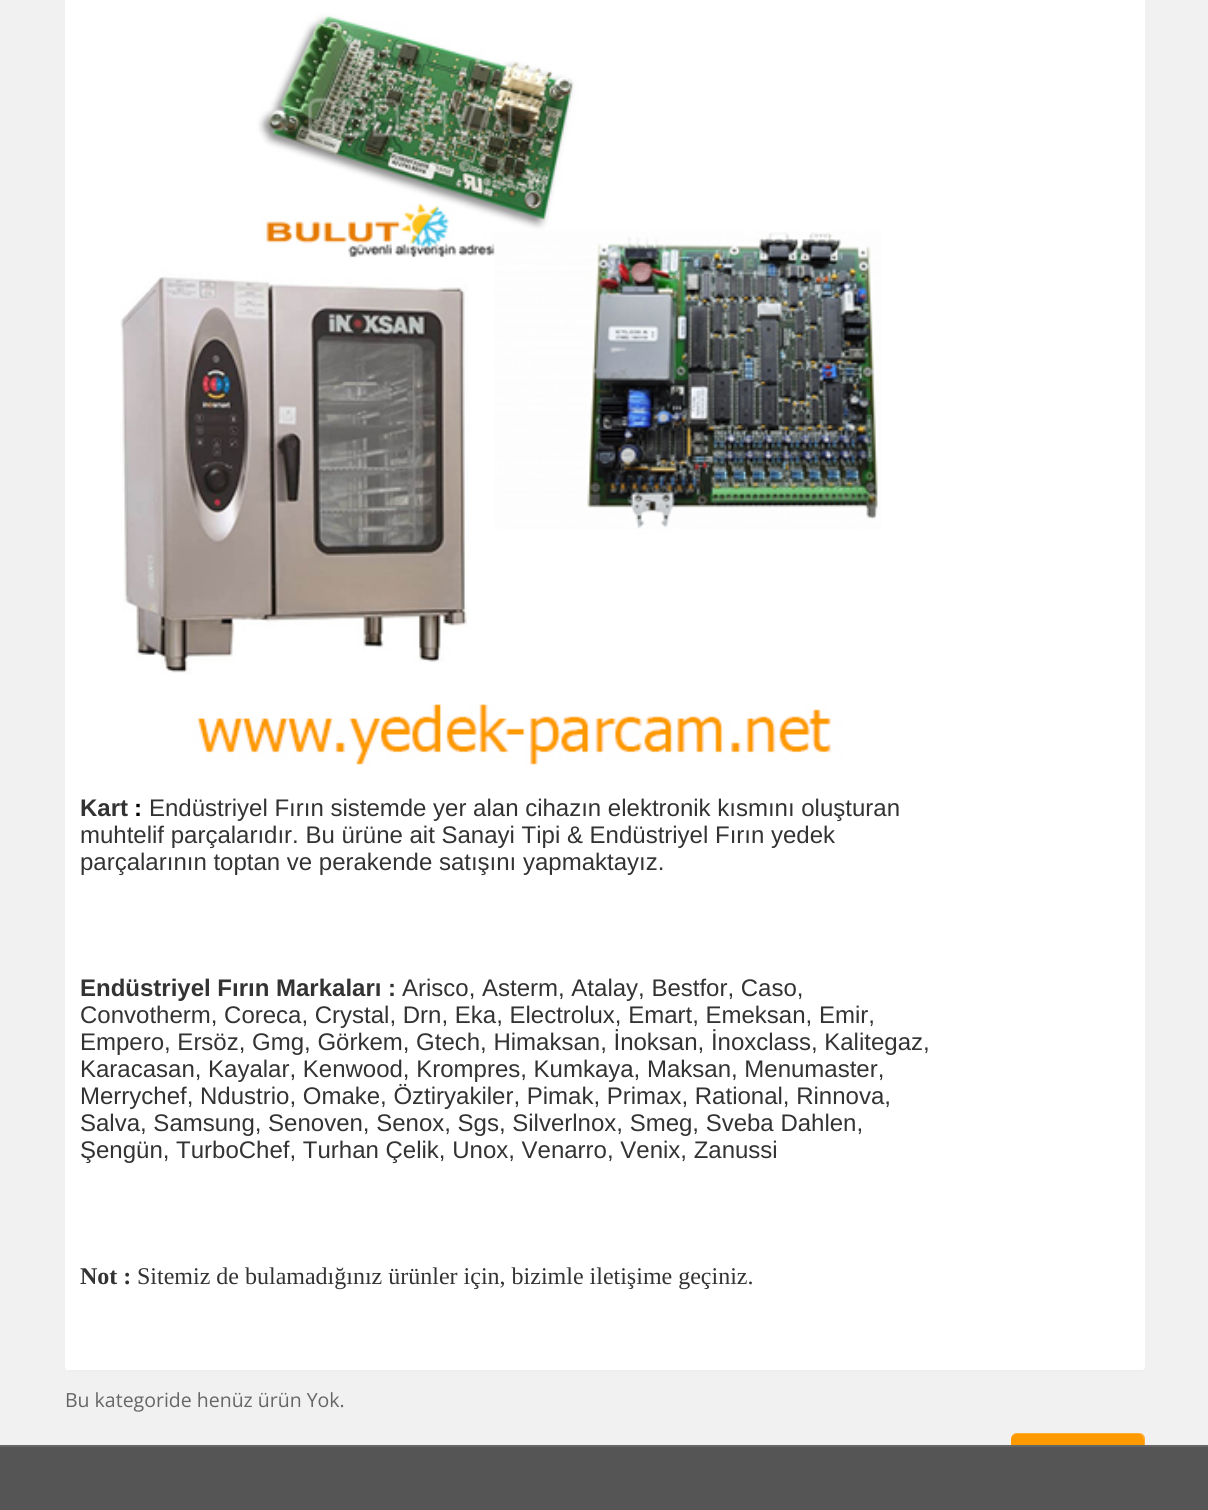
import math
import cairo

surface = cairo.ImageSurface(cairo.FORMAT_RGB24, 1208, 1510)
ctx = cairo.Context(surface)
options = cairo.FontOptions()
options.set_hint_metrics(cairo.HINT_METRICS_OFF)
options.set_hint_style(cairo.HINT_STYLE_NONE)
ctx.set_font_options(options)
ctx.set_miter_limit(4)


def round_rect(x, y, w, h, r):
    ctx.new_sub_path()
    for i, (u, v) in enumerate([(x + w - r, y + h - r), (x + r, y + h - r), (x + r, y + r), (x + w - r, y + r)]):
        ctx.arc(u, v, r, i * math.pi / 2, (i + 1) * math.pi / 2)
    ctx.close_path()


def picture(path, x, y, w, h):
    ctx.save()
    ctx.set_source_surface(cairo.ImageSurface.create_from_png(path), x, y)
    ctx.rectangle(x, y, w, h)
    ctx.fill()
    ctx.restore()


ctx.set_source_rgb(0.945, 0.945, 0.945)
ctx.paint()
ctx.set_source_rgb(1, 1, 1)
round_rect(65, -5, 1080, 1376, 5)
ctx.fill()
ctx.set_source_rgb(0.933, 0.933, 0.933)
ctx.rectangle(68, 1370, 1075, 2)
ctx.fill()
picture("img1.png", 120, 12, 762, 753)
ctx.select_font_face("Liberation Sans", cairo.FONT_SLANT_NORMAL, cairo.FONT_WEIGHT_BOLD)
ctx.set_font_size(24)
ctx.set_source_rgb(0.2, 0.2, 0.2)
ctx.move_to(80, 816)
ctx.show_text("Kart")
ctx.set_source_rgb(0, 0, 0)
ctx.move_to(134, 816)
ctx.show_text(":")
ctx.select_font_face("Liberation Sans")
ctx.set_source_rgb(0.2, 0.2, 0.2)
ctx.move_to(149, 816)
ctx.show_text("Endüstriyel Fırın sistemde yer alan cihazın elektronik kısmını oluşturan")
ctx.move_to(80, 843)
ctx.show_text("muhtelif parçalarıdır. Bu ürüne ait Sanayi Tipi & Endüstriyel Fırın yedek")
ctx.move_to(80, 870)
ctx.show_text("parçalarının toptan ve perakende satışını yapmaktayız.")
ctx.select_font_face("Liberation Sans", cairo.FONT_SLANT_NORMAL, cairo.FONT_WEIGHT_BOLD)
ctx.move_to(80, 996)
ctx.show_text("Endüstriyel Fırın Markaları :")
ctx.select_font_face("Liberation Sans")
ctx.move_to(402, 996)
ctx.show_text("Arisco, Asterm, Atalay, Bestfor, Caso,")
ctx.move_to(80, 1023)
ctx.show_text("Convotherm, Coreca, Crystal, Drn, Eka, Electrolux, Emart, Emeksan, Emir,")
ctx.move_to(80, 1050)
ctx.show_text("Empero, Ersöz, Gmg, Görkem, Gtech, Himaksan, İnoksan, İnoxclass, Kalitegaz,")
ctx.move_to(80, 1077)
ctx.show_text("Karacasan, Kayalar, Kenwood, Krompres, Kumkaya, Maksan, Menumaster,")
ctx.move_to(80, 1104)
ctx.show_text("Merrychef, Ndustrio, Omake, Öztiryakiler, Pimak, Primax, Rational, Rinnova,")
ctx.move_to(80, 1131)
ctx.show_text("Salva, Samsung, Senoven, Senox, Sgs, Silverlnox, Smeg, Sveba Dahlen,")
ctx.move_to(80, 1158)
ctx.show_text("Şengün, TurboChef, Turhan Çelik, Unox, Venarro, Venix, Zanussi")
ctx.select_font_face("Liberation Serif", cairo.FONT_SLANT_NORMAL, cairo.FONT_WEIGHT_BOLD)
ctx.move_to(80, 1284)
ctx.show_text("Not :")
ctx.select_font_face("Liberation Serif")
ctx.move_to(137, 1284)
ctx.show_text("Sitemiz de bulamadığınız ürünler için, bizimle iletişime geçiniz.")
ctx.select_font_face("Open Sans")
ctx.set_font_size(19.5)
ctx.set_source_rgb(0.4, 0.4, 0.4)
ctx.move_to(65, 1407)
ctx.show_text("Bu kategoride henüz ürün Yok.")
ctx.set_source_rgb(1, 0.6, 0)
round_rect(1011, 1433, 134, 55, 6)
ctx.fill()
ctx.set_source_rgba(1, 1, 1, 0.2)
ctx.new_path()
ctx.move_to(1017, 1434)
ctx.line_to(1138, 1434)
ctx.curve_to(1145, 1434, 1144, 1442, 1144, 1447)
ctx.line_to(1144, 1486)
ctx.curve_to(1145, 1485, 1145, 1483, 1145, 1482)
ctx.line_to(1145, 1439)
ctx.curve_to(1145, 1436, 1142, 1433, 1139, 1433)
ctx.line_to(1017, 1433)
ctx.curve_to(1014, 1433, 1011, 1436, 1011, 1439)
ctx.line_to(1011, 1440)
ctx.curve_to(1011, 1437, 1014, 1434, 1017, 1434)
ctx.close_path()
ctx.fill()
ctx.set_source_rgb(0.333, 0.333, 0.333)
ctx.rectangle(0, 1447, 1208, 63)
ctx.fill()
ctx.set_source_rgb(0.4, 0.4, 0.4)
ctx.rectangle(0, 1445, 1208, 2)
ctx.fill()
surface.write_to_png("page.png")
